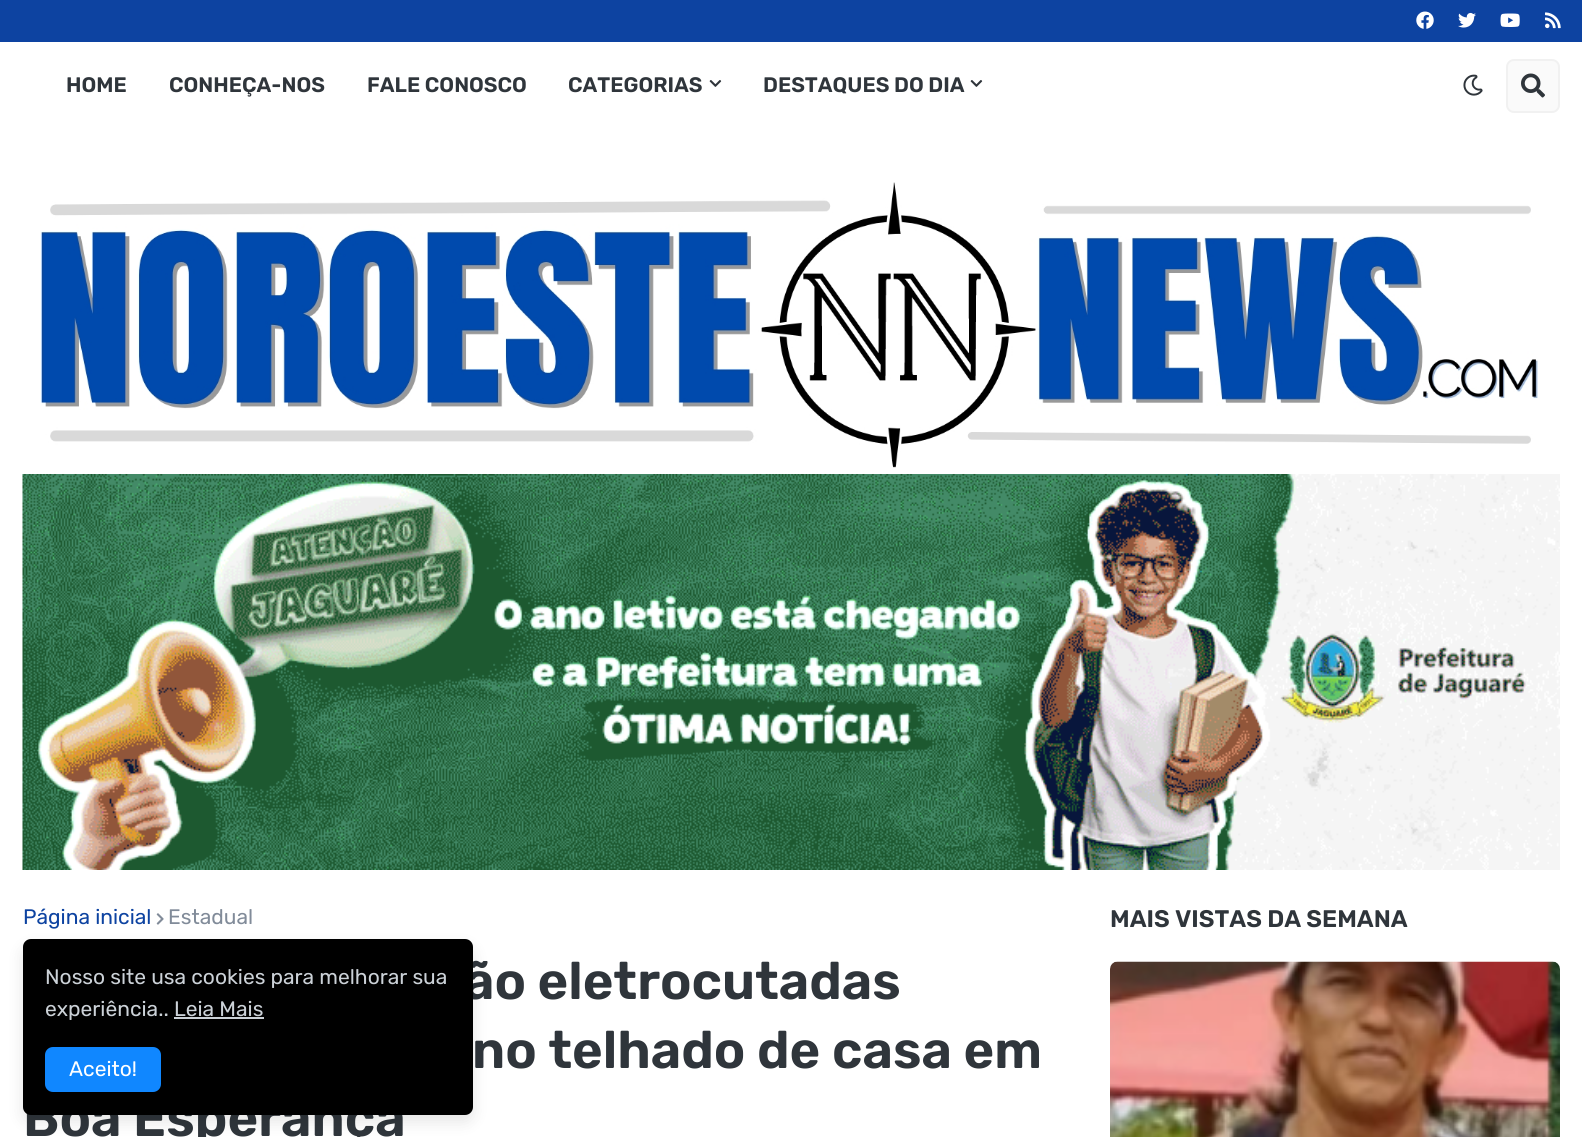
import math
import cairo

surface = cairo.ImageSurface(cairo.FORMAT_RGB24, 1582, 1137)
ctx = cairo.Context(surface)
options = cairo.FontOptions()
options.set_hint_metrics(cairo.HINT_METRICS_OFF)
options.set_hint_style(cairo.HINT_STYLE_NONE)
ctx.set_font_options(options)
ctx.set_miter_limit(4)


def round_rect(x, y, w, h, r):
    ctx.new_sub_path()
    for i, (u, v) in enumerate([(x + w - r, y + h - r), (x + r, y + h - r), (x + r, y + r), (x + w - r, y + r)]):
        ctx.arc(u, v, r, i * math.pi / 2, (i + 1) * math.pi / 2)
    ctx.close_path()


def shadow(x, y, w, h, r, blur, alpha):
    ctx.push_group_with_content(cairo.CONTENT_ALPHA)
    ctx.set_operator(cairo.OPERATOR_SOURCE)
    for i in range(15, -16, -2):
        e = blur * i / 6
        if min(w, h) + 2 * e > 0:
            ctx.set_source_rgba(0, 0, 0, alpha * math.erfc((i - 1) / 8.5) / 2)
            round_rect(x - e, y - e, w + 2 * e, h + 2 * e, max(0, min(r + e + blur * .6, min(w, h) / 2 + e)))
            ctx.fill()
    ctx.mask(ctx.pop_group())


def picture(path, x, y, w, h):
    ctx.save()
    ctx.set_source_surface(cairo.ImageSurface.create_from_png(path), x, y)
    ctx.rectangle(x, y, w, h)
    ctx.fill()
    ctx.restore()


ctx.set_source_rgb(1, 1, 1)
ctx.paint()
ctx.set_source_rgb(0.051, 0.263, 0.631)
ctx.rectangle(0, 0, 1582, 42)
ctx.fill()
picture("img1.png", 1416, 11, 18, 18)
picture("img2.png", 1458, 12, 18, 16)
picture("img3.png", 1500, 13, 20, 14)
picture("img4.png", 1545, 12, 16, 17)
ctx.select_font_face("Rubik SemiBold")
ctx.set_font_size(21)
ctx.set_source_rgb(0.184, 0.208, 0.231)
ctx.move_to(66, 92)
ctx.show_text("HOME")
ctx.move_to(169, 92)
ctx.show_text("CONHEÇA-NOS")
ctx.move_to(367, 92)
ctx.show_text("FALE CONOSCO")
ctx.move_to(568, 92)
ctx.show_text("CATEGORIAS")
picture("img5.png", 709, 80, 13, 7)
ctx.move_to(763, 92)
ctx.show_text("DESTAQUES DO DIA")
picture("img5.png", 970, 80, 13, 7)
picture("img6.png", 1463, 74, 20, 22)
ctx.set_source_rgb(0.98, 0.98, 0.98)
round_rect(1507, 60, 52, 52, 7)
ctx.fill_preserve()
ctx.set_source_rgb(0.945, 0.945, 0.945)
ctx.stroke()
picture("img7.png", 1521, 73, 24, 25)
picture("img8.png", 40, 182, 1498, 286)
picture("img9.png", 22, 474, 1538, 396)
ctx.select_font_face("Rubik")
ctx.set_source_rgb(0.051, 0.263, 0.631)
ctx.move_to(23, 924)
ctx.show_text("Página inicial")
picture("img10.png", 156, 913, 8, 12)
ctx.set_source_rgb(0.506, 0.545, 0.6)
ctx.move_to(168, 924)
ctx.show_text("Estadual")
ctx.select_font_face("Rubik SemiBold")
ctx.set_font_size(52.5)
ctx.set_source_rgb(0.184, 0.208, 0.231)
ctx.move_to(464, 999)
ctx.show_text("ão eletrocutadas")
ctx.move_to(472, 1068)
ctx.show_text("no telhado de casa em")
ctx.move_to(23, 1136)
ctx.show_text("Boa Esperança")
ctx.set_font_size(24)
ctx.move_to(1110, 927)
ctx.show_text("MAIS VISTAS DA SEMANA")
picture("img11.png", 1110, 961, 450, 176)
ctx.set_source_rgb(0, 0, 0)
shadow(23, 947, 450, 175, 8, 7.5, 0.1)
ctx.set_source_rgb(0, 0, 0)
round_rect(23, 939, 450, 176, 8)
ctx.fill()
ctx.select_font_face("Rubik")
ctx.set_font_size(21)
ctx.set_source_rgb(0.796, 0.82, 0.843)
ctx.move_to(45, 984)
ctx.show_text("Nosso site usa cookies para melhorar sua")
ctx.move_to(45, 1016)
ctx.show_text("experiência.. Leia Mais")
ctx.rectangle(174, 1017, 90, 2)
ctx.fill()
ctx.set_source_rgb(0.063, 0.529, 1)
round_rect(45, 1047, 116, 45, 8)
ctx.fill()
ctx.set_source_rgb(1, 1, 1)
ctx.move_to(69, 1076)
ctx.show_text("Aceito!")
surface.write_to_png("page.png")
